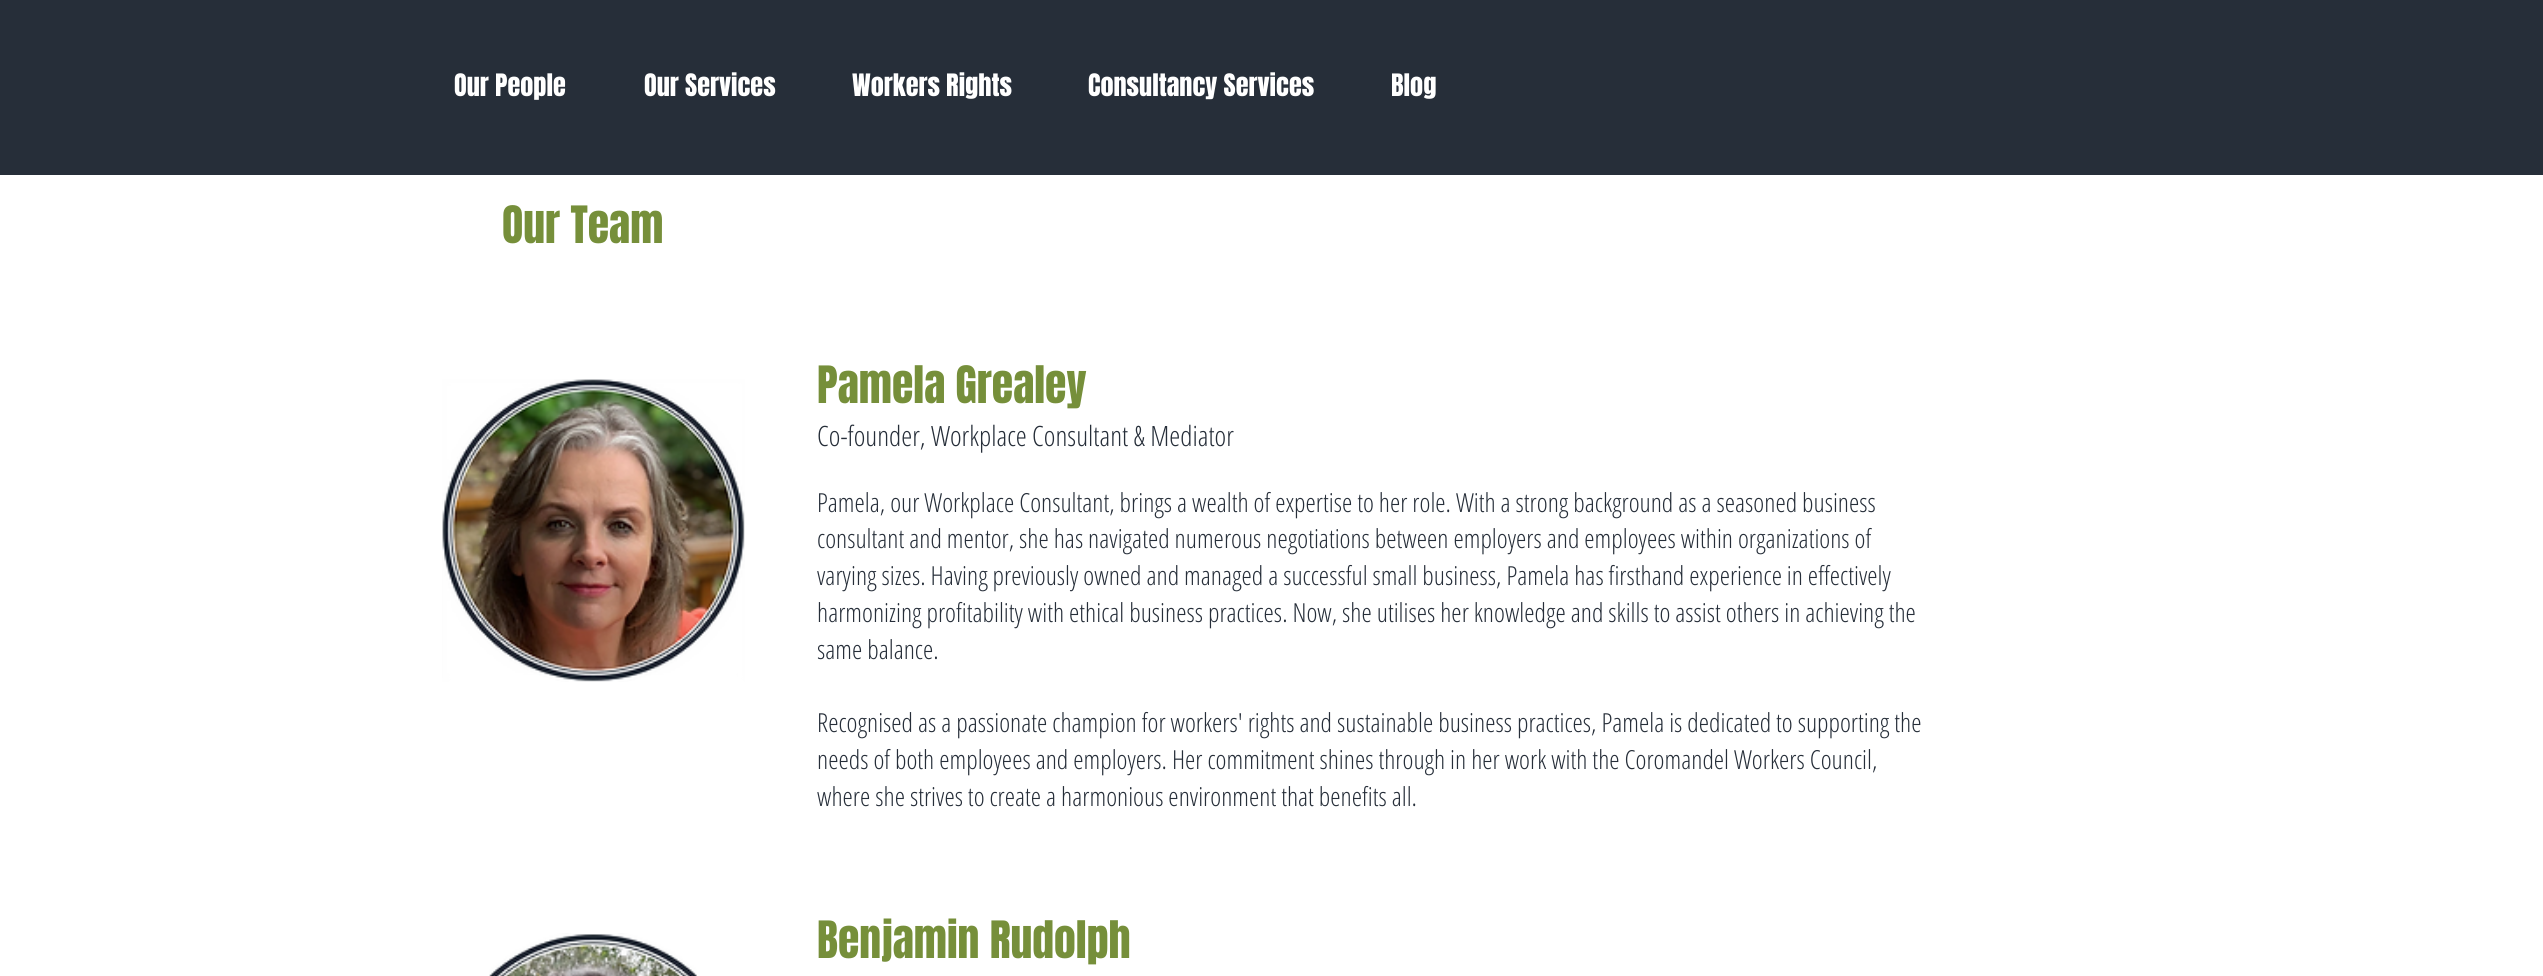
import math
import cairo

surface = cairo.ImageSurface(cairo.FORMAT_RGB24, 2543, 976)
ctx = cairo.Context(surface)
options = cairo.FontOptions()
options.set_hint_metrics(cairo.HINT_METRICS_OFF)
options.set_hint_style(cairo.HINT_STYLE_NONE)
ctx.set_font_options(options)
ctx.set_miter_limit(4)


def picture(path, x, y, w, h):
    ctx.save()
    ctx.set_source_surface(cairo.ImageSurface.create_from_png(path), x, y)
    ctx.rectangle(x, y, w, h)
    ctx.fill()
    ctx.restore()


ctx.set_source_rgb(1, 1, 1)
ctx.paint()
ctx.set_source_rgb(0.149, 0.18, 0.224)
ctx.rectangle(0, 0, 2543, 175)
ctx.fill()
ctx.select_font_face("Anton")
ctx.set_font_size(26.25)
ctx.set_source_rgb(1, 1, 1)
ctx.move_to(454, 96)
ctx.show_text("Our People")
ctx.move_to(644, 96)
ctx.show_text("Our Services")
ctx.move_to(852, 96)
ctx.show_text("Workers Rights")
ctx.move_to(1088, 96)
ctx.show_text("Consultancy Services")
ctx.move_to(1391, 96)
ctx.show_text("Blog")
ctx.set_font_size(43.75)
ctx.set_source_rgb(0.463, 0.561, 0.227)
ctx.move_to(502, 243)
ctx.show_text("Our Team")
picture("img1.png", 442, 379, 303, 303)
ctx.move_to(817, 403)
ctx.show_text("Pamela Grealey")
ctx.select_font_face("Open Sans Condensed Light")
ctx.set_font_size(28)
ctx.set_source_rgb(0.149, 0.18, 0.224)
ctx.move_to(817, 446)
ctx.show_text("Co-founder, Workplace Consultant & Mediator")
ctx.set_font_size(26.25)
ctx.move_to(817, 512)
ctx.show_text("Pamela, our Workplace Consultant, brings a wealth of expertise to her role. With a strong background as a seasoned business")
ctx.move_to(817, 548)
ctx.show_text("consultant and mentor, she has navigated numerous negotiations between employers and employees within organizations of")
ctx.move_to(817, 585)
ctx.show_text("varying sizes. Having previously owned and managed a successful small business, Pamela has firsthand experience in effectively")
ctx.move_to(817, 622)
ctx.show_text("harmonizing profitability with ethical business practices. Now, she utilises her knowledge and skills to assist others in achieving the")
ctx.move_to(817, 659)
ctx.show_text("same balance.")
ctx.move_to(817, 732)
ctx.show_text("Recognised as a passionate champion for workers' rights and sustainable business practices, Pamela is dedicated to supporting the")
ctx.move_to(817, 769)
ctx.show_text("needs of both employees and employers. Her commitment shines through in her work with the Coromandel Workers Council,")
ctx.move_to(817, 806)
ctx.show_text("where she strives to create a harmonious environment that benefits all.")
picture("img2.png", 489, 933, 208, 43)
ctx.select_font_face("Anton")
ctx.set_font_size(43.75)
ctx.set_source_rgb(0.463, 0.561, 0.227)
ctx.move_to(817, 958)
ctx.show_text("Benjamin Rudolph")
surface.write_to_png("page.png")
